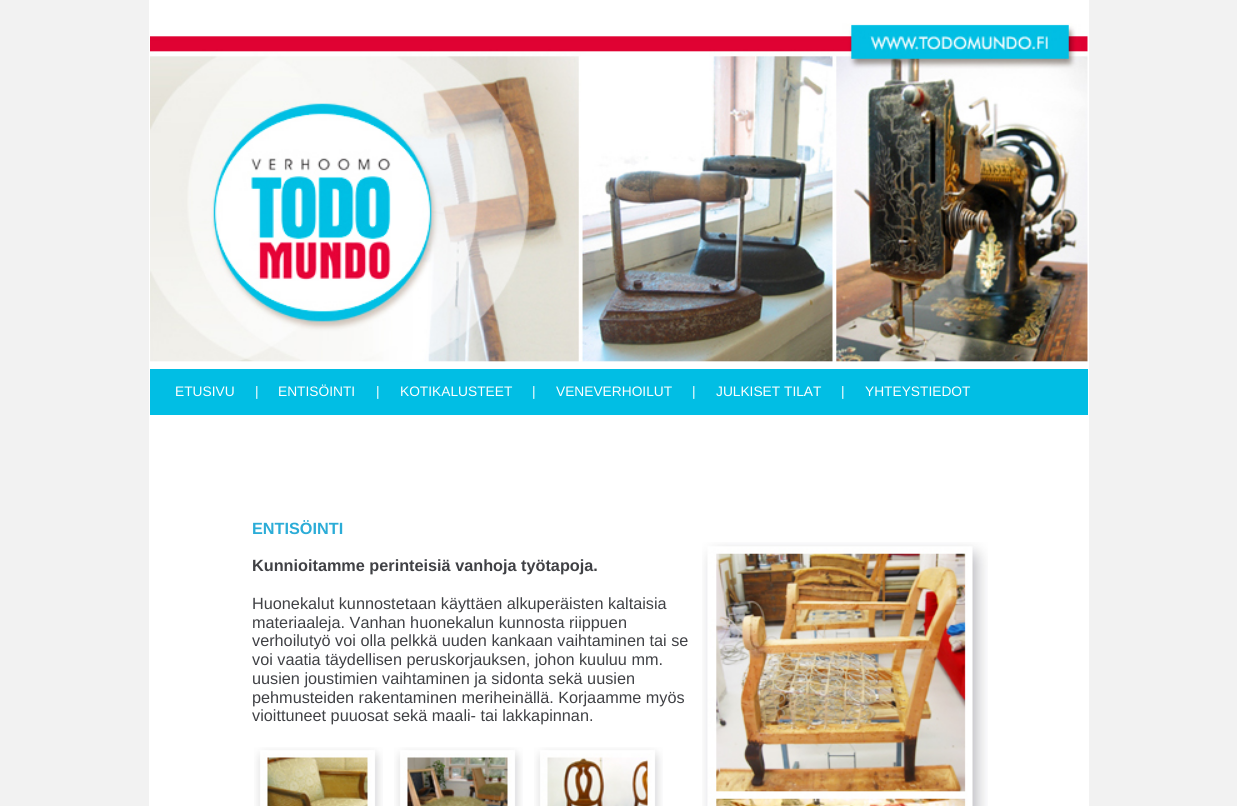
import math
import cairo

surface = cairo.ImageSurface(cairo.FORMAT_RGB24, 1237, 806)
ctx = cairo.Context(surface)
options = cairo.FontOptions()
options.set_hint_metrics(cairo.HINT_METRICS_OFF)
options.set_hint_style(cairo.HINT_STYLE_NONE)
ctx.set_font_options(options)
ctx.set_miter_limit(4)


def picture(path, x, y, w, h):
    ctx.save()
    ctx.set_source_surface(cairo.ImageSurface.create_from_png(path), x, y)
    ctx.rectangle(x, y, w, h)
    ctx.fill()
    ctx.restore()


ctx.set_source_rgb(0.949, 0.949, 0.949)
ctx.paint()
ctx.set_source_rgb(1, 1, 1)
ctx.rectangle(149, 0, 940, 806)
ctx.fill()
picture("img1.png", 150, 23, 938, 339)
ctx.set_source_rgb(0.004, 0.745, 0.894)
ctx.rectangle(150, 369, 938, 46)
ctx.fill()
ctx.select_font_face("Liberation Sans")
ctx.set_font_size(13.75)
ctx.set_source_rgb(1, 1, 1)
ctx.move_to(175, 396)
ctx.show_text("ETUSIVU")
ctx.move_to(255, 396)
ctx.show_text("|")
ctx.move_to(278, 396)
ctx.show_text("ENTISÖINTI")
ctx.move_to(376, 396)
ctx.show_text("|")
ctx.move_to(400, 396)
ctx.show_text("KOTIKALUSTEET")
ctx.move_to(532, 396)
ctx.show_text("|")
ctx.move_to(556, 396)
ctx.show_text("VENEVERHOILUT")
ctx.move_to(692, 396)
ctx.show_text("|")
ctx.move_to(716, 396)
ctx.show_text("JULKISET TILAT")
ctx.move_to(841, 396)
ctx.show_text("|")
ctx.move_to(865, 396)
ctx.show_text("YHTEYSTIEDOT")
ctx.select_font_face("Liberation Sans", cairo.FONT_SLANT_NORMAL, cairo.FONT_WEIGHT_BOLD)
ctx.set_font_size(16.25)
ctx.set_source_rgb(0.169, 0.675, 0.843)
ctx.move_to(252, 534)
ctx.show_text("ENTISÖINTI")
ctx.set_source_rgb(0.251, 0.255, 0.271)
ctx.move_to(252, 571)
ctx.show_text("Kunnioitamme perinteisiä vanhoja työtapoja.")
ctx.select_font_face("Liberation Sans")
ctx.move_to(252, 609)
ctx.show_text("Huonekalut kunnostetaan käyttäen alkuperäisten kaltaisia")
ctx.move_to(252, 628)
ctx.show_text("materiaaleja. Vanhan huonekalun kunnosta riippuen")
ctx.move_to(252, 646)
ctx.show_text("verhoilutyö voi olla pelkkä uuden kankaan vaihtaminen tai se")
ctx.move_to(252, 665)
ctx.show_text("voi vaatia täydellisen peruskorjauksen, johon kuuluu mm.")
ctx.move_to(252, 684)
ctx.show_text("uusien joustimien vaihtaminen ja sidonta sekä uusien")
ctx.move_to(252, 703)
ctx.show_text("pehmusteiden rakentaminen meriheinällä. Korjaamme myös")
ctx.move_to(252, 721)
ctx.show_text("vioittuneet puuosat sekä maali- tai lakkapinnan.")
picture("img2.png", 254, 747, 129, 59)
picture("img3.png", 394, 747, 129, 59)
picture("img4.png", 534, 747, 129, 59)
picture("img5.png", 702, 542, 286, 264)
surface.write_to_png("page.png")
